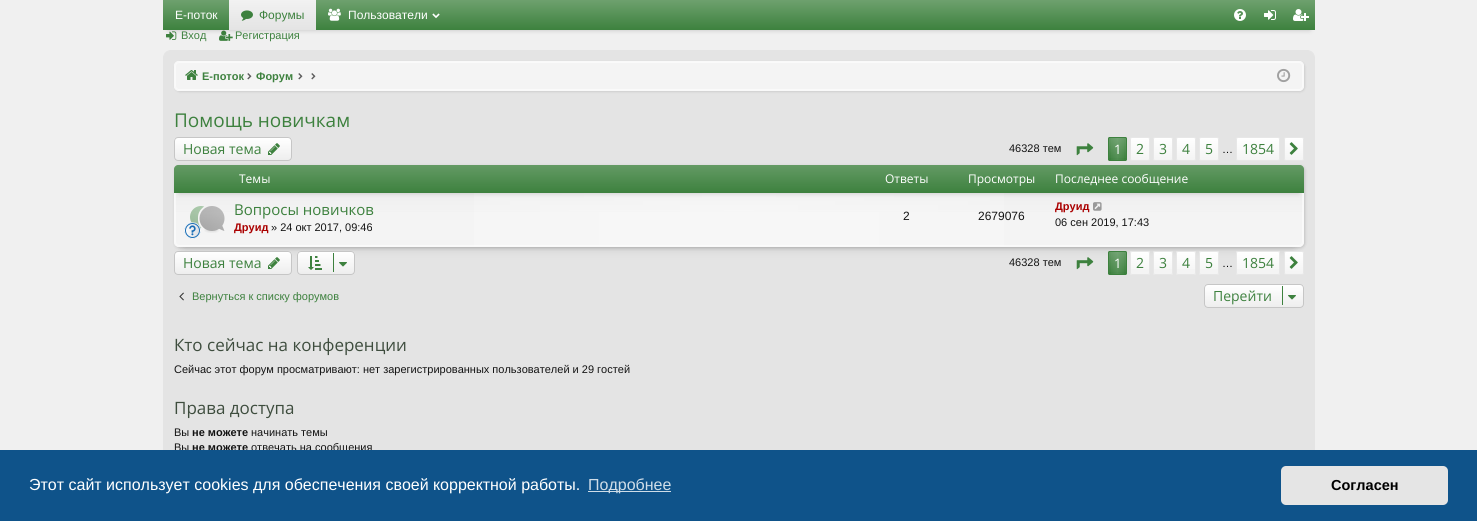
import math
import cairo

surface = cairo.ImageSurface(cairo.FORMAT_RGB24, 1477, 521)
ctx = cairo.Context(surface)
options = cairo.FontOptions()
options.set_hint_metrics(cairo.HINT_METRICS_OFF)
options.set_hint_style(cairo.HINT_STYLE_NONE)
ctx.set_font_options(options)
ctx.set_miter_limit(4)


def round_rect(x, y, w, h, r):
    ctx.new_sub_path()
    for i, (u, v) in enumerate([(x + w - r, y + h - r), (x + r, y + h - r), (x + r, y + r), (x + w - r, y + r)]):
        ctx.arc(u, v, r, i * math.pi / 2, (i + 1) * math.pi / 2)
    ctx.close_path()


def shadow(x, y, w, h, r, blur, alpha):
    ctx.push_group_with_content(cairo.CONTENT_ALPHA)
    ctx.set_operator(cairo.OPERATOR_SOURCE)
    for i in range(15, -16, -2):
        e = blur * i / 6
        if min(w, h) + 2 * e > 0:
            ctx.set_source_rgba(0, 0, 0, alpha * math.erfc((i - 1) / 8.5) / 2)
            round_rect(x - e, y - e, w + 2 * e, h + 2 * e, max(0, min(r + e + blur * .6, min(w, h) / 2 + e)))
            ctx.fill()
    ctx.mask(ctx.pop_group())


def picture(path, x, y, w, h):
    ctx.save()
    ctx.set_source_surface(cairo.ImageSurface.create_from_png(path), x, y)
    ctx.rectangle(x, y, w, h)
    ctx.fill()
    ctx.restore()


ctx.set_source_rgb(0.941, 0.941, 0.941)
ctx.paint()
picture("img7.png", 166, 31, 11, 9)
picture("img8.png", 219, 30, 14, 11)
ctx.set_source_rgb(0, 0, 0)
shadow(168, 10, 1142, 20, 0, 2.5, 0.2)
gradient = cairo.LinearGradient(739, 0, 739, 30)
gradient.add_color_stop_rgba(0, 0.431, 0.631, 0.431, 1)
gradient.add_color_stop_rgba(1, 0.239, 0.506, 0.243, 1)
ctx.set_source(gradient)
ctx.rectangle(163, 0, 1152, 30)
ctx.fill()
ctx.select_font_face("Liberation Sans")
ctx.set_font_size(12)
ctx.set_source_rgb(1, 1, 1)
ctx.move_to(175, 19)
ctx.show_text("Е-поток")
gradient = cairo.LinearGradient(273, 0, 273, 30)
gradient.add_color_stop_rgba(0, 0.949, 0.949, 0.949, 1)
gradient.add_color_stop_rgba(1, 0.894, 0.894, 0.894, 1)
ctx.set_source(gradient)
ctx.rectangle(229, 0, 87, 30)
ctx.fill()
picture("img1.png", 241, 10, 12, 11)
ctx.set_source_rgb(0.239, 0.506, 0.243)
ctx.move_to(259, 19)
ctx.show_text("Форумы")
picture("img2.png", 328, 8, 13, 13)
ctx.set_source_rgb(1, 1, 1)
ctx.move_to(348, 19)
ctx.show_text("Пользователи")
picture("img3.png", 432, 13, 8, 6)
picture("img4.png", 1234, 9, 12, 12)
picture("img5.png", 1264, 10, 12, 10)
picture("img6.png", 1293, 9, 16, 12)
ctx.set_font_size(11)
ctx.set_source_rgb(0.239, 0.506, 0.243)
ctx.move_to(181, 39)
ctx.show_text("Вход")
ctx.move_to(235, 39)
ctx.show_text("Регистрация")
ctx.set_source_rgb(0.894, 0.894, 0.894)
round_rect(163.5, 50.5, 1151, 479, 7.5)
ctx.fill_preserve()
ctx.set_line_width(1)
ctx.stroke()
ctx.set_source_rgb(0, 0, 0)
shadow(175, 62, 1130, 30, 5, 1, 0.1)
ctx.set_source_rgb(0.957, 0.957, 0.957)
round_rect(174, 61, 1130, 30, 5)
ctx.fill()
round_rect(175.5, 62.5, 1127, 27, 3.5)
ctx.set_source_rgb(0.98, 0.98, 0.98)
ctx.stroke()
round_rect(174.5, 61.5, 1129, 29, 4.5)
ctx.set_source_rgb(0.976, 0.976, 0.976)
ctx.stroke()
picture("img9.png", 185, 70, 13, 10)
ctx.select_font_face("Liberation Sans", cairo.FONT_SLANT_NORMAL, cairo.FONT_WEIGHT_BOLD)
ctx.set_source_rgb(0.239, 0.506, 0.243)
ctx.move_to(202, 80)
ctx.show_text("Е-поток")
picture("img10.png", 247, 73, 5, 7)
ctx.move_to(256, 80)
ctx.show_text("Форум")
picture("img10.png", 298, 73, 5, 7)
picture("img10.png", 311, 73, 5, 7)
picture("img11.png", 1277, 68, 14, 15)
ctx.select_font_face("Open Sans")
ctx.set_font_size(19)
ctx.move_to(174, 127)
ctx.show_text("Помощь новичкам")
ctx.set_source_rgb(0, 0, 0)
shadow(175, 166, 1130, 82, 5, 1.5, 0.15)
ctx.set_source_rgb(0.933, 0.933, 0.933)
round_rect(174, 137, 118, 24, 4)
ctx.fill()
ctx.save()
round_rect(174, 137, 118, 24, 4)
ctx.clip()
gradient = cairo.LinearGradient(233, 138, 233, 160)
gradient.add_color_stop_rgba(0, 1, 1, 1, 1)
gradient.add_color_stop_rgba(1, 1, 1, 1, 0)
ctx.set_source(gradient)
ctx.rectangle(174, 138, 118, 22)
ctx.fill()
ctx.restore()
round_rect(174.5, 137.5, 117, 23, 3.5)
ctx.set_source_rgb(0.776, 0.776, 0.776)
ctx.stroke()
ctx.set_font_size(14)
ctx.set_source_rgb(0.239, 0.506, 0.243)
ctx.move_to(183, 154)
ctx.show_text("Новая тема")
picture("img12.png", 268, 143, 12, 12)
ctx.select_font_face("Liberation Sans")
ctx.set_font_size(11)
ctx.set_source_rgb(0.078, 0.078, 0.078)
ctx.move_to(1009, 152)
ctx.show_text("46328 тем")
picture("img13.png", 1076, 143, 18, 13)
ctx.set_source_rgb(0.239, 0.506, 0.243)
round_rect(1108, 137, 19, 24, 2)
ctx.fill()
gradient = cairo.LinearGradient(1109, 149, 1126, 149)
gradient.add_color_stop_rgba(0, 1, 1, 1, 0)
gradient.add_color_stop_rgba(0.5, 1, 1, 1, 0.1)
gradient.add_color_stop_rgba(1, 1, 1, 1, 0)
ctx.set_source(gradient)
ctx.rectangle(1111, 138, 13, 22)
ctx.fill()
gradient = cairo.LinearGradient(1118, 138, 1118, 160)
gradient.add_color_stop_rgba(0, 1, 1, 1, 0.2)
gradient.add_color_stop_rgba(1, 1, 1, 1, 0)
ctx.set_source(gradient)
ctx.rectangle(1108, 138, 19, 20)
ctx.fill()
round_rect(1108.5, 137.5, 18, 23, 1.5)
ctx.set_source_rgb(0.239, 0.506, 0.243)
ctx.stroke()
ctx.select_font_face("Open Sans")
ctx.set_font_size(13)
ctx.set_source_rgb(1, 1, 1)
ctx.move_to(1114, 154)
ctx.show_text("1")
ctx.save()
round_rect(1130, 137, 20, 24, 2)
ctx.clip()
gradient = cairo.LinearGradient(1140, 138, 1140, 160)
gradient.add_color_stop_rgba(0, 1, 1, 1, 1)
gradient.add_color_stop_rgba(1, 0.957, 0.957, 0.957, 1)
ctx.set_source(gradient)
ctx.rectangle(1130, 138, 20, 22)
ctx.fill()
ctx.restore()
round_rect(1130.5, 137.5, 19, 23, 1.5)
ctx.set_source_rgb(0.906, 0.906, 0.906)
ctx.stroke()
ctx.set_font_size(14)
ctx.set_source_rgb(0.239, 0.506, 0.243)
ctx.move_to(1136, 154)
ctx.show_text("2")
ctx.save()
round_rect(1153, 137, 20, 24, 2)
ctx.clip()
gradient = cairo.LinearGradient(1163, 138, 1163, 160)
gradient.add_color_stop_rgba(0, 1, 1, 1, 1)
gradient.add_color_stop_rgba(1, 0.957, 0.957, 0.957, 1)
ctx.set_source(gradient)
ctx.rectangle(1153, 138, 20, 22)
ctx.fill()
ctx.restore()
round_rect(1153.5, 137.5, 19, 23, 1.5)
ctx.set_source_rgb(0.906, 0.906, 0.906)
ctx.stroke()
ctx.set_source_rgb(0.239, 0.506, 0.243)
ctx.move_to(1159, 154)
ctx.show_text("3")
ctx.save()
round_rect(1176, 137, 20, 24, 2)
ctx.clip()
gradient = cairo.LinearGradient(1186, 138, 1186, 160)
gradient.add_color_stop_rgba(0, 1, 1, 1, 1)
gradient.add_color_stop_rgba(1, 0.957, 0.957, 0.957, 1)
ctx.set_source(gradient)
ctx.rectangle(1176, 138, 20, 22)
ctx.fill()
ctx.restore()
round_rect(1176.5, 137.5, 19, 23, 1.5)
ctx.set_source_rgb(0.906, 0.906, 0.906)
ctx.stroke()
ctx.set_source_rgb(0.239, 0.506, 0.243)
ctx.move_to(1182, 154)
ctx.show_text("4")
ctx.save()
round_rect(1199, 137, 20, 24, 2)
ctx.clip()
gradient = cairo.LinearGradient(1209, 138, 1209, 160)
gradient.add_color_stop_rgba(0, 1, 1, 1, 1)
gradient.add_color_stop_rgba(1, 0.957, 0.957, 0.957, 1)
ctx.set_source(gradient)
ctx.rectangle(1199, 138, 20, 22)
ctx.fill()
ctx.restore()
round_rect(1199.5, 137.5, 19, 23, 1.5)
ctx.set_source_rgb(0.906, 0.906, 0.906)
ctx.stroke()
ctx.set_source_rgb(0.239, 0.506, 0.243)
ctx.move_to(1205, 154)
ctx.show_text("5")
ctx.select_font_face("Liberation Sans")
ctx.set_font_size(11)
ctx.set_source_rgb(0, 0, 0)
ctx.move_to(1222, 153)
ctx.show_text("…")
ctx.save()
round_rect(1236, 137, 44, 24, 2)
ctx.clip()
gradient = cairo.LinearGradient(1258, 138, 1258, 160)
gradient.add_color_stop_rgba(0, 1, 1, 1, 1)
gradient.add_color_stop_rgba(1, 0.957, 0.957, 0.957, 1)
ctx.set_source(gradient)
ctx.rectangle(1236, 138, 44, 22)
ctx.fill()
ctx.restore()
round_rect(1236.5, 137.5, 43, 23, 1.5)
ctx.set_source_rgb(0.906, 0.906, 0.906)
ctx.stroke()
ctx.select_font_face("Open Sans")
ctx.set_font_size(14)
ctx.set_source_rgb(0.239, 0.506, 0.243)
ctx.move_to(1242, 154)
ctx.show_text("1854")
ctx.save()
round_rect(1284, 137, 20, 24, 2)
ctx.clip()
gradient = cairo.LinearGradient(1294, 138, 1294, 160)
gradient.add_color_stop_rgba(0, 1, 1, 1, 1)
gradient.add_color_stop_rgba(1, 0.957, 0.957, 0.957, 1)
ctx.set_source(gradient)
ctx.rectangle(1284, 138, 20, 22)
ctx.fill()
ctx.restore()
round_rect(1284.5, 137.5, 19, 23, 1.5)
ctx.set_source_rgb(0.906, 0.906, 0.906)
ctx.stroke()
picture("img14.png", 1289, 142, 9, 13)
ctx.set_source_rgb(0, 0, 0)
shadow(184, 185, 1110, 62, 0, 5, 0.2)
ctx.set_source_rgb(0.957, 0.957, 0.957)
round_rect(174, 165, 1130, 82, 5)
ctx.fill()
ctx.save()
round_rect(174, 165, 1130, 82, 5)
ctx.clip()
gradient = cairo.LinearGradient(739, 166, 739, 246)
gradient.add_color_stop_rgba(0, 0.8, 0.8, 0.8, 0.2)
gradient.add_color_stop_rgba(0.12, 0.8, 0.8, 0.8, 0.25)
gradient.add_color_stop_rgba(0.62, 0.8, 0.8, 0.8, 0)
ctx.set_source(gradient)
ctx.rectangle(174, 166, 1130, 46)
ctx.fill()
ctx.restore()
gradient = cairo.LinearGradient(175, 206, 1303, 206)
gradient.add_color_stop_rgba(0, 1, 1, 1, 0)
gradient.add_color_stop_rgba(0.5, 1, 1, 1, 0.3)
gradient.add_color_stop_rgba(1, 1, 1, 1, 0)
ctx.set_source(gradient)
ctx.rectangle(474, 193, 530, 53)
ctx.fill()
round_rect(175.5, 166.5, 1127, 79, 3.5)
ctx.set_source_rgba(1, 1, 1, 0.5)
ctx.stroke()
round_rect(174.5, 165.5, 1129, 81, 4.5)
ctx.set_source_rgb(0.976, 0.976, 0.976)
ctx.stroke()
ctx.set_source_rgb(0, 0, 0)
shadow(179, 175, 1120, 18, 0, 2.5, 0.2)
ctx.set_source_rgb(0.239, 0.506, 0.243)
ctx.new_path()
ctx.move_to(178, 165)
ctx.line_to(1300, 165)
ctx.curve_to(1302, 165, 1304, 167, 1304, 169)
ctx.line_to(1304, 193)
ctx.line_to(174, 193)
ctx.line_to(174, 169)
ctx.curve_to(174, 167, 176, 165, 178, 165)
ctx.close_path()
ctx.fill()
gradient = cairo.LinearGradient(739, 165, 739, 193)
gradient.add_color_stop_rgba(0, 1, 1, 1, 0.2)
gradient.add_color_stop_rgba(1, 1, 1, 1, 0)
ctx.set_source(gradient)
ctx.new_path()
ctx.move_to(178, 165)
ctx.line_to(1300, 165)
ctx.curve_to(1302, 165, 1304, 167, 1304, 169)
ctx.line_to(1304, 193)
ctx.line_to(174, 193)
ctx.line_to(174, 169)
ctx.curve_to(174, 167, 176, 165, 178, 165)
ctx.close_path()
ctx.fill()
ctx.set_font_size(12)
ctx.set_source_rgb(1, 1, 1)
ctx.move_to(239, 183)
ctx.show_text("Темы")
ctx.move_to(885, 183)
ctx.show_text("Ответы")
ctx.move_to(968, 183)
ctx.show_text("Просмотры")
ctx.move_to(1055, 183)
ctx.show_text("Последнее сообщение")
picture("img15.png", 190, 206, 35, 27)
picture("img16.png", 184, 222, 17, 17)
ctx.set_font_size(15)
ctx.set_source_rgb(0.239, 0.506, 0.243)
ctx.move_to(234, 215)
ctx.show_text("Вопросы новичков")
ctx.select_font_face("Liberation Sans", cairo.FONT_SLANT_NORMAL, cairo.FONT_WEIGHT_BOLD)
ctx.set_font_size(11)
ctx.set_source_rgb(0.667, 0, 0)
ctx.move_to(234, 231)
ctx.show_text("Друид")
ctx.select_font_face("Liberation Sans")
ctx.set_source_rgb(0.078, 0.078, 0.078)
ctx.move_to(271, 231)
ctx.show_text("» 24 окт 2017, 09:46")
ctx.set_font_size(12)
ctx.move_to(903, 220)
ctx.show_text("2")
ctx.move_to(978, 220)
ctx.show_text("2679076")
ctx.select_font_face("Liberation Sans", cairo.FONT_SLANT_NORMAL, cairo.FONT_WEIGHT_BOLD)
ctx.set_font_size(11)
ctx.set_source_rgb(0.667, 0, 0)
ctx.move_to(1055, 210)
ctx.show_text("Друид")
picture("img17.png", 1093, 202, 9, 9)
ctx.select_font_face("Liberation Sans")
ctx.set_source_rgb(0.078, 0.078, 0.078)
ctx.move_to(1055, 226)
ctx.show_text("06 сен 2019, 17:43")
ctx.set_source_rgb(0.933, 0.933, 0.933)
round_rect(174, 251, 118, 24, 4)
ctx.fill()
ctx.save()
round_rect(174, 251, 118, 24, 4)
ctx.clip()
gradient = cairo.LinearGradient(233, 252, 233, 274)
gradient.add_color_stop_rgba(0, 1, 1, 1, 1)
gradient.add_color_stop_rgba(1, 1, 1, 1, 0)
ctx.set_source(gradient)
ctx.rectangle(174, 252, 118, 22)
ctx.fill()
ctx.restore()
round_rect(174.5, 251.5, 117, 23, 3.5)
ctx.set_source_rgb(0.776, 0.776, 0.776)
ctx.stroke()
ctx.select_font_face("Open Sans")
ctx.set_font_size(14)
ctx.set_source_rgb(0.239, 0.506, 0.243)
ctx.move_to(183, 268)
ctx.show_text("Новая тема")
picture("img12.png", 268, 257, 12, 12)
ctx.set_source_rgb(0.933, 0.933, 0.933)
round_rect(297, 251, 58, 24, 4)
ctx.fill()
ctx.save()
round_rect(297, 251, 58, 24, 4)
ctx.clip()
gradient = cairo.LinearGradient(326, 252, 326, 274)
gradient.add_color_stop_rgba(0, 1, 1, 1, 1)
gradient.add_color_stop_rgba(1, 1, 1, 1, 0)
ctx.set_source(gradient)
ctx.rectangle(297, 252, 58, 22)
ctx.fill()
ctx.restore()
round_rect(297.5, 251.5, 57, 23, 3.5)
ctx.set_source_rgb(0.776, 0.776, 0.776)
ctx.stroke()
picture("img18.png", 308, 256, 14, 14)
ctx.set_source_rgb(0.239, 0.506, 0.243)
ctx.rectangle(333, 253, 1, 19)
ctx.fill()
picture("img19.png", 339, 262, 8, 5)
ctx.select_font_face("Liberation Sans")
ctx.set_font_size(11)
ctx.set_source_rgb(0.078, 0.078, 0.078)
ctx.move_to(1009, 266)
ctx.show_text("46328 тем")
picture("img20.png", 1076, 257, 18, 13)
ctx.set_source_rgb(0.239, 0.506, 0.243)
round_rect(1108, 251, 19, 24, 2)
ctx.fill()
gradient = cairo.LinearGradient(1109, 263, 1126, 263)
gradient.add_color_stop_rgba(0, 1, 1, 1, 0)
gradient.add_color_stop_rgba(0.5, 1, 1, 1, 0.1)
gradient.add_color_stop_rgba(1, 1, 1, 1, 0)
ctx.set_source(gradient)
ctx.rectangle(1111, 252, 13, 22)
ctx.fill()
gradient = cairo.LinearGradient(1118, 252, 1118, 274)
gradient.add_color_stop_rgba(0, 1, 1, 1, 0.2)
gradient.add_color_stop_rgba(1, 1, 1, 1, 0)
ctx.set_source(gradient)
ctx.rectangle(1108, 252, 19, 20)
ctx.fill()
round_rect(1108.5, 251.5, 18, 23, 1.5)
ctx.set_source_rgb(0.239, 0.506, 0.243)
ctx.stroke()
ctx.select_font_face("Open Sans")
ctx.set_font_size(13)
ctx.set_source_rgb(1, 1, 1)
ctx.move_to(1114, 268)
ctx.show_text("1")
ctx.set_source_rgb(0.957, 0.957, 0.957)
round_rect(1130, 251, 20, 24, 2)
ctx.fill()
gradient = cairo.LinearGradient(1140, 252, 1140, 274)
gradient.add_color_stop_rgba(0, 1, 1, 1, 1)
gradient.add_color_stop_rgba(1, 1, 1, 1, 0)
ctx.set_source(gradient)
ctx.rectangle(1130, 252, 20, 17)
ctx.fill()
round_rect(1130.5, 251.5, 19, 23, 1.5)
ctx.set_source_rgb(0.906, 0.906, 0.906)
ctx.stroke()
ctx.set_font_size(14)
ctx.set_source_rgb(0.239, 0.506, 0.243)
ctx.move_to(1136, 268)
ctx.show_text("2")
ctx.set_source_rgb(0.957, 0.957, 0.957)
round_rect(1153, 251, 20, 24, 2)
ctx.fill()
gradient = cairo.LinearGradient(1163, 252, 1163, 274)
gradient.add_color_stop_rgba(0, 1, 1, 1, 1)
gradient.add_color_stop_rgba(1, 1, 1, 1, 0)
ctx.set_source(gradient)
ctx.rectangle(1153, 252, 20, 17)
ctx.fill()
round_rect(1153.5, 251.5, 19, 23, 1.5)
ctx.set_source_rgb(0.906, 0.906, 0.906)
ctx.stroke()
ctx.set_source_rgb(0.239, 0.506, 0.243)
ctx.move_to(1159, 268)
ctx.show_text("3")
ctx.set_source_rgb(0.957, 0.957, 0.957)
round_rect(1176, 251, 20, 24, 2)
ctx.fill()
gradient = cairo.LinearGradient(1186, 252, 1186, 274)
gradient.add_color_stop_rgba(0, 1, 1, 1, 1)
gradient.add_color_stop_rgba(1, 1, 1, 1, 0)
ctx.set_source(gradient)
ctx.rectangle(1176, 252, 20, 17)
ctx.fill()
round_rect(1176.5, 251.5, 19, 23, 1.5)
ctx.set_source_rgb(0.906, 0.906, 0.906)
ctx.stroke()
ctx.set_source_rgb(0.239, 0.506, 0.243)
ctx.move_to(1182, 268)
ctx.show_text("4")
ctx.set_source_rgb(0.957, 0.957, 0.957)
round_rect(1199, 251, 20, 24, 2)
ctx.fill()
gradient = cairo.LinearGradient(1209, 252, 1209, 274)
gradient.add_color_stop_rgba(0, 1, 1, 1, 1)
gradient.add_color_stop_rgba(1, 1, 1, 1, 0)
ctx.set_source(gradient)
ctx.rectangle(1199, 252, 20, 17)
ctx.fill()
round_rect(1199.5, 251.5, 19, 23, 1.5)
ctx.set_source_rgb(0.906, 0.906, 0.906)
ctx.stroke()
ctx.set_source_rgb(0.239, 0.506, 0.243)
ctx.move_to(1205, 268)
ctx.show_text("5")
ctx.select_font_face("Liberation Sans")
ctx.set_font_size(11)
ctx.set_source_rgb(0, 0, 0)
ctx.move_to(1222, 267)
ctx.show_text("…")
ctx.set_source_rgb(0.957, 0.957, 0.957)
round_rect(1236, 251, 44, 24, 2)
ctx.fill()
gradient = cairo.LinearGradient(1258, 252, 1258, 274)
gradient.add_color_stop_rgba(0, 1, 1, 1, 1)
gradient.add_color_stop_rgba(1, 1, 1, 1, 0)
ctx.set_source(gradient)
ctx.rectangle(1236, 252, 44, 17)
ctx.fill()
round_rect(1236.5, 251.5, 43, 23, 1.5)
ctx.set_source_rgb(0.906, 0.906, 0.906)
ctx.stroke()
ctx.select_font_face("Open Sans")
ctx.set_font_size(14)
ctx.set_source_rgb(0.239, 0.506, 0.243)
ctx.move_to(1242, 268)
ctx.show_text("1854")
ctx.save()
round_rect(1284, 251, 20, 24, 2)
ctx.clip()
gradient = cairo.LinearGradient(1294, 252, 1294, 274)
gradient.add_color_stop_rgba(0, 1, 1, 1, 1)
gradient.add_color_stop_rgba(1, 0.957, 0.957, 0.957, 1)
ctx.set_source(gradient)
ctx.rectangle(1284, 252, 20, 22)
ctx.fill()
ctx.restore()
round_rect(1284.5, 251.5, 19, 23, 1.5)
ctx.set_source_rgb(0.906, 0.906, 0.906)
ctx.stroke()
picture("img14.png", 1289, 256, 9, 13)
picture("img21.png", 179, 292, 5, 9)
ctx.select_font_face("Liberation Sans")
ctx.set_font_size(11)
ctx.set_source_rgb(0.239, 0.506, 0.243)
ctx.move_to(192, 300)
ctx.show_text("Вернуться к списку форумов")
ctx.set_source_rgb(0.933, 0.933, 0.933)
round_rect(1204, 284, 100, 24, 4)
ctx.fill()
ctx.save()
round_rect(1204, 284, 100, 24, 4)
ctx.clip()
gradient = cairo.LinearGradient(1254, 285, 1254, 307)
gradient.add_color_stop_rgba(0, 1, 1, 1, 1)
gradient.add_color_stop_rgba(1, 1, 1, 1, 0)
ctx.set_source(gradient)
ctx.rectangle(1204, 285, 100, 22)
ctx.fill()
ctx.restore()
round_rect(1204.5, 284.5, 99, 23, 3.5)
ctx.set_source_rgb(0.776, 0.776, 0.776)
ctx.stroke()
ctx.select_font_face("Open Sans")
ctx.set_font_size(14)
ctx.set_source_rgb(0.239, 0.506, 0.243)
ctx.move_to(1213, 301)
ctx.show_text("Перейти")
ctx.rectangle(1282, 286, 1, 19)
ctx.fill()
picture("img19.png", 1288, 295, 8, 5)
ctx.set_font_size(17)
ctx.set_source_rgb(0.243, 0.302, 0.243)
ctx.move_to(174, 351)
ctx.show_text("Кто сейчас на конференции")
ctx.select_font_face("Liberation Sans")
ctx.set_font_size(11)
ctx.set_source_rgb(0.078, 0.078, 0.078)
ctx.move_to(174, 373)
ctx.show_text("Сейчас этот форум просматривают: нет зарегистрированных пользователей и 29 гостей")
ctx.select_font_face("Open Sans")
ctx.set_font_size(17)
ctx.set_source_rgb(0.243, 0.302, 0.243)
ctx.move_to(174, 414)
ctx.show_text("Права доступа")
ctx.select_font_face("Liberation Sans")
ctx.set_font_size(11)
ctx.set_source_rgb(0.078, 0.078, 0.078)
ctx.move_to(174, 436)
ctx.show_text("Вы")
ctx.select_font_face("Liberation Sans", cairo.FONT_SLANT_NORMAL, cairo.FONT_WEIGHT_BOLD)
ctx.move_to(192, 436)
ctx.show_text("не можете")
ctx.select_font_face("Liberation Sans")
ctx.move_to(251, 436)
ctx.show_text("начинать темы")
ctx.move_to(174, 451)
ctx.show_text("Вы")
ctx.select_font_face("Liberation Sans", cairo.FONT_SLANT_NORMAL, cairo.FONT_WEIGHT_BOLD)
ctx.move_to(192, 451)
ctx.show_text("не можете")
ctx.select_font_face("Liberation Sans")
ctx.move_to(251, 451)
ctx.show_text("отвечать на сообщения")
ctx.set_source_rgb(0.059, 0.325, 0.541)
ctx.rectangle(0, 450, 1477, 71)
ctx.fill()
ctx.set_font_size(16)
ctx.set_source_rgb(1, 1, 1)
ctx.move_to(29, 490)
ctx.show_text("Этот сайт использует cookies для обеспечения своей корректной работы.")
ctx.set_source_rgb(0.812, 0.867, 0.91)
ctx.rectangle(588, 491, 83, 1)
ctx.fill()
ctx.move_to(588, 490)
ctx.show_text("Подробнее")
ctx.set_source_rgb(0.898, 0.898, 0.898)
round_rect(1281, 466, 167, 39, 5)
ctx.fill()
ctx.select_font_face("Liberation Sans", cairo.FONT_SLANT_NORMAL, cairo.FONT_WEIGHT_BOLD)
ctx.set_font_size(14.5)
ctx.set_source_rgb(0, 0, 0)
ctx.move_to(1331, 490)
ctx.show_text("Согласен")
surface.write_to_png("page.png")
